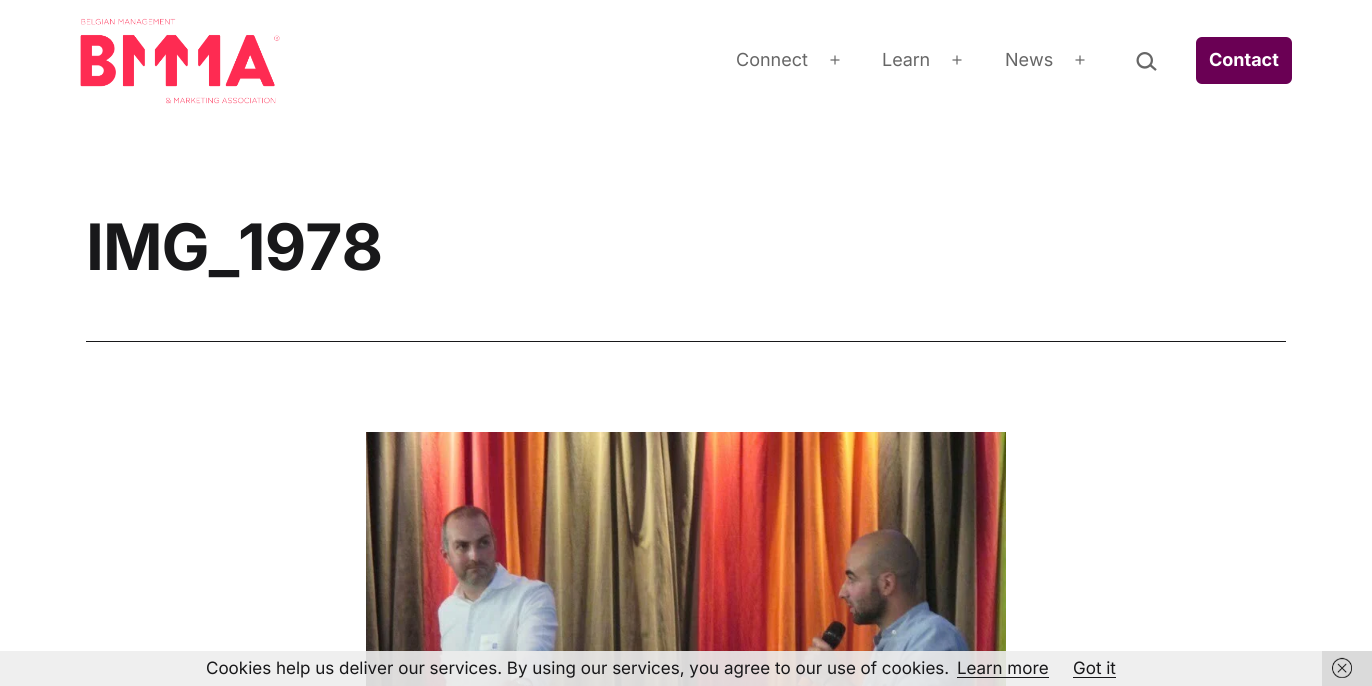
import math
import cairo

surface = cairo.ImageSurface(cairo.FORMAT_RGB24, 1372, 686)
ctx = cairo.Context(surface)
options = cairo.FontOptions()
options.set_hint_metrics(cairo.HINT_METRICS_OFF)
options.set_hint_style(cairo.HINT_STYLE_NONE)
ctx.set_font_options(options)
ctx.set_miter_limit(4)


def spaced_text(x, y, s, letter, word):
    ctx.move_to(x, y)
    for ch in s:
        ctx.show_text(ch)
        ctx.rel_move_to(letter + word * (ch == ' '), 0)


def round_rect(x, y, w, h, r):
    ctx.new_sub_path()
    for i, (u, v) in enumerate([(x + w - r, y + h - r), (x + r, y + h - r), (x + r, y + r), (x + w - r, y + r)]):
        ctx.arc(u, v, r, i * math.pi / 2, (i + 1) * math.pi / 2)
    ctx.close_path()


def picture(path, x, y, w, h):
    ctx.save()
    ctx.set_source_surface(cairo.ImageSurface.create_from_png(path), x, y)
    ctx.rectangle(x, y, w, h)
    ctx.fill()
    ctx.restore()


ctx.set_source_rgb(1, 1, 1)
ctx.paint()
picture("img1.png", 80, 18, 200, 86)
ctx.select_font_face("Inter")
ctx.set_font_size(18)
ctx.set_source_rgb(0.4, 0.4, 0.4)
ctx.move_to(736, 66)
ctx.show_text("Connect")
picture("img2.png", 830, 55, 10, 10)
ctx.move_to(882, 66)
ctx.show_text("Learn")
picture("img2.png", 952, 55, 10, 10)
ctx.move_to(1005, 66)
ctx.show_text("News")
picture("img2.png", 1075, 55, 10, 10)
picture("img3.png", 1136, 52, 21, 19)
ctx.set_source_rgb(0.416, 0, 0.329)
round_rect(1196, 37, 96, 47, 6)
ctx.fill()
ctx.select_font_face("Inter", cairo.FONT_SLANT_NORMAL, cairo.FONT_WEIGHT_BOLD)
ctx.set_source_rgb(1, 1, 1)
ctx.move_to(1209, 66)
ctx.show_text("Contact")
ctx.set_font_size(64)
ctx.set_source_rgb(0.094, 0.094, 0.102)
spaced_text(86, 270, "IMG_1978", -1, 0)
ctx.rectangle(86, 341, 1200, 1)
ctx.fill()
picture("img4.png", 366, 432, 640, 254)
ctx.set_source_rgba(0.933, 0.933, 0.933, 0.9)
ctx.rectangle(0, 651, 1322, 35)
ctx.fill()
ctx.select_font_face("Inter")
ctx.set_font_size(17)
ctx.set_source_rgb(0.094, 0.094, 0.102)
ctx.move_to(206, 674)
ctx.show_text("Cookies help us deliver our services. By using our services, you agree to our use of cookies.")
ctx.move_to(957, 674)
ctx.show_text("Learn more")
ctx.rectangle(957, 677, 92, 1)
ctx.fill()
ctx.move_to(1073, 674)
ctx.show_text("Got it")
ctx.rectangle(1073, 677, 43, 1)
ctx.fill()
ctx.set_source_rgb(0.855, 0.855, 0.855)
ctx.rectangle(1322, 651, 50, 35)
ctx.fill()
picture("img5.png", 1332, 657, 20, 21)
surface.write_to_png("page.png")
